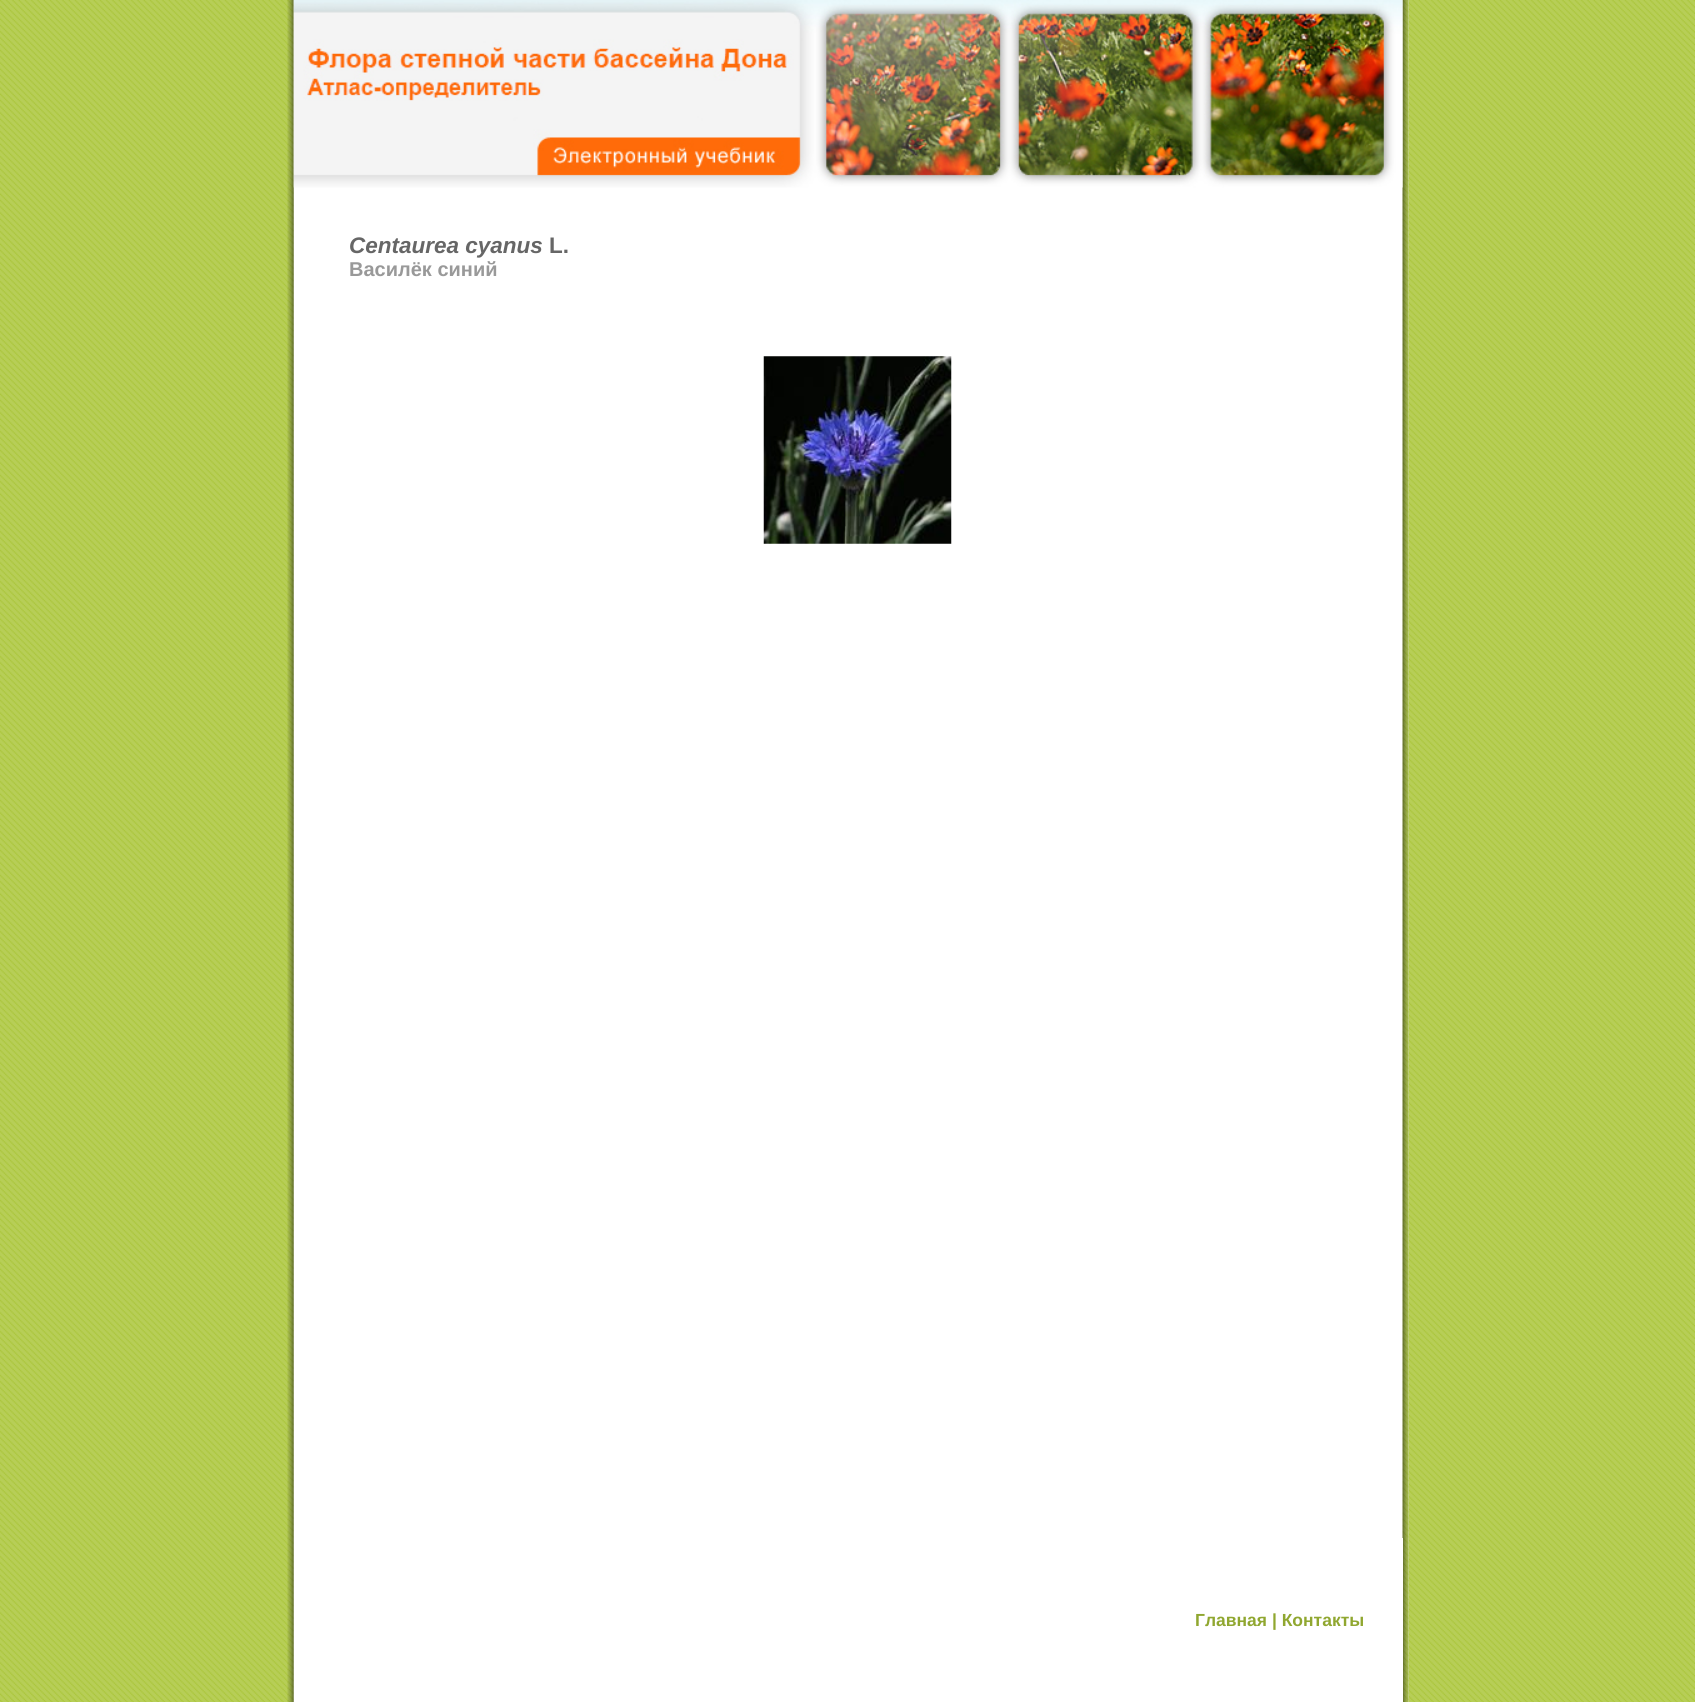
import math
import cairo

surface = cairo.ImageSurface(cairo.FORMAT_RGB24, 1695, 1702)
ctx = cairo.Context(surface)
options = cairo.FontOptions()
options.set_hint_metrics(cairo.HINT_METRICS_OFF)
options.set_hint_style(cairo.HINT_STYLE_NONE)
ctx.set_font_options(options)
ctx.set_miter_limit(4)


def picture(path, x, y, w, h):
    ctx.save()
    ctx.set_source_surface(cairo.ImageSurface.create_from_png(path), x, y)
    ctx.rectangle(x, y, w, h)
    ctx.fill()
    ctx.restore()


ctx.set_source_rgb(1, 1, 1)
ctx.paint()
picture("img1.png", 0, 0, 1695, 1702)
ctx.set_source_rgb(1, 1, 1)
ctx.rectangle(293, 0, 1116, 1702)
ctx.fill()
picture("img2.png", 287, 0, 7, 1702)
picture("img4.png", 1402, 0, 7, 1702)
picture("img3.png", 293, 0, 1110, 188)
ctx.select_font_face("Liberation Sans", cairo.FONT_SLANT_ITALIC, cairo.FONT_WEIGHT_BOLD)
ctx.set_font_size(22.5)
ctx.set_source_rgb(0.4, 0.4, 0.4)
ctx.move_to(349, 253)
ctx.show_text("Centaurea cyanus")
ctx.select_font_face("Liberation Sans", cairo.FONT_SLANT_NORMAL, cairo.FONT_WEIGHT_BOLD)
ctx.move_to(549, 253)
ctx.show_text("L.")
ctx.set_font_size(20)
ctx.set_source_rgb(0.6, 0.6, 0.6)
ctx.move_to(349, 276)
ctx.show_text("Василёк синий")
picture("img5.png", 763, 356, 189, 188)
ctx.set_source_rgb(1, 1, 1)
ctx.rectangle(1402, 1538, 1, 164)
ctx.fill()
ctx.set_font_size(17.5)
ctx.set_source_rgb(0.565, 0.655, 0.188)
ctx.move_to(1195, 1626)
ctx.show_text("Главная | Контакты")
surface.write_to_png("page.png")
